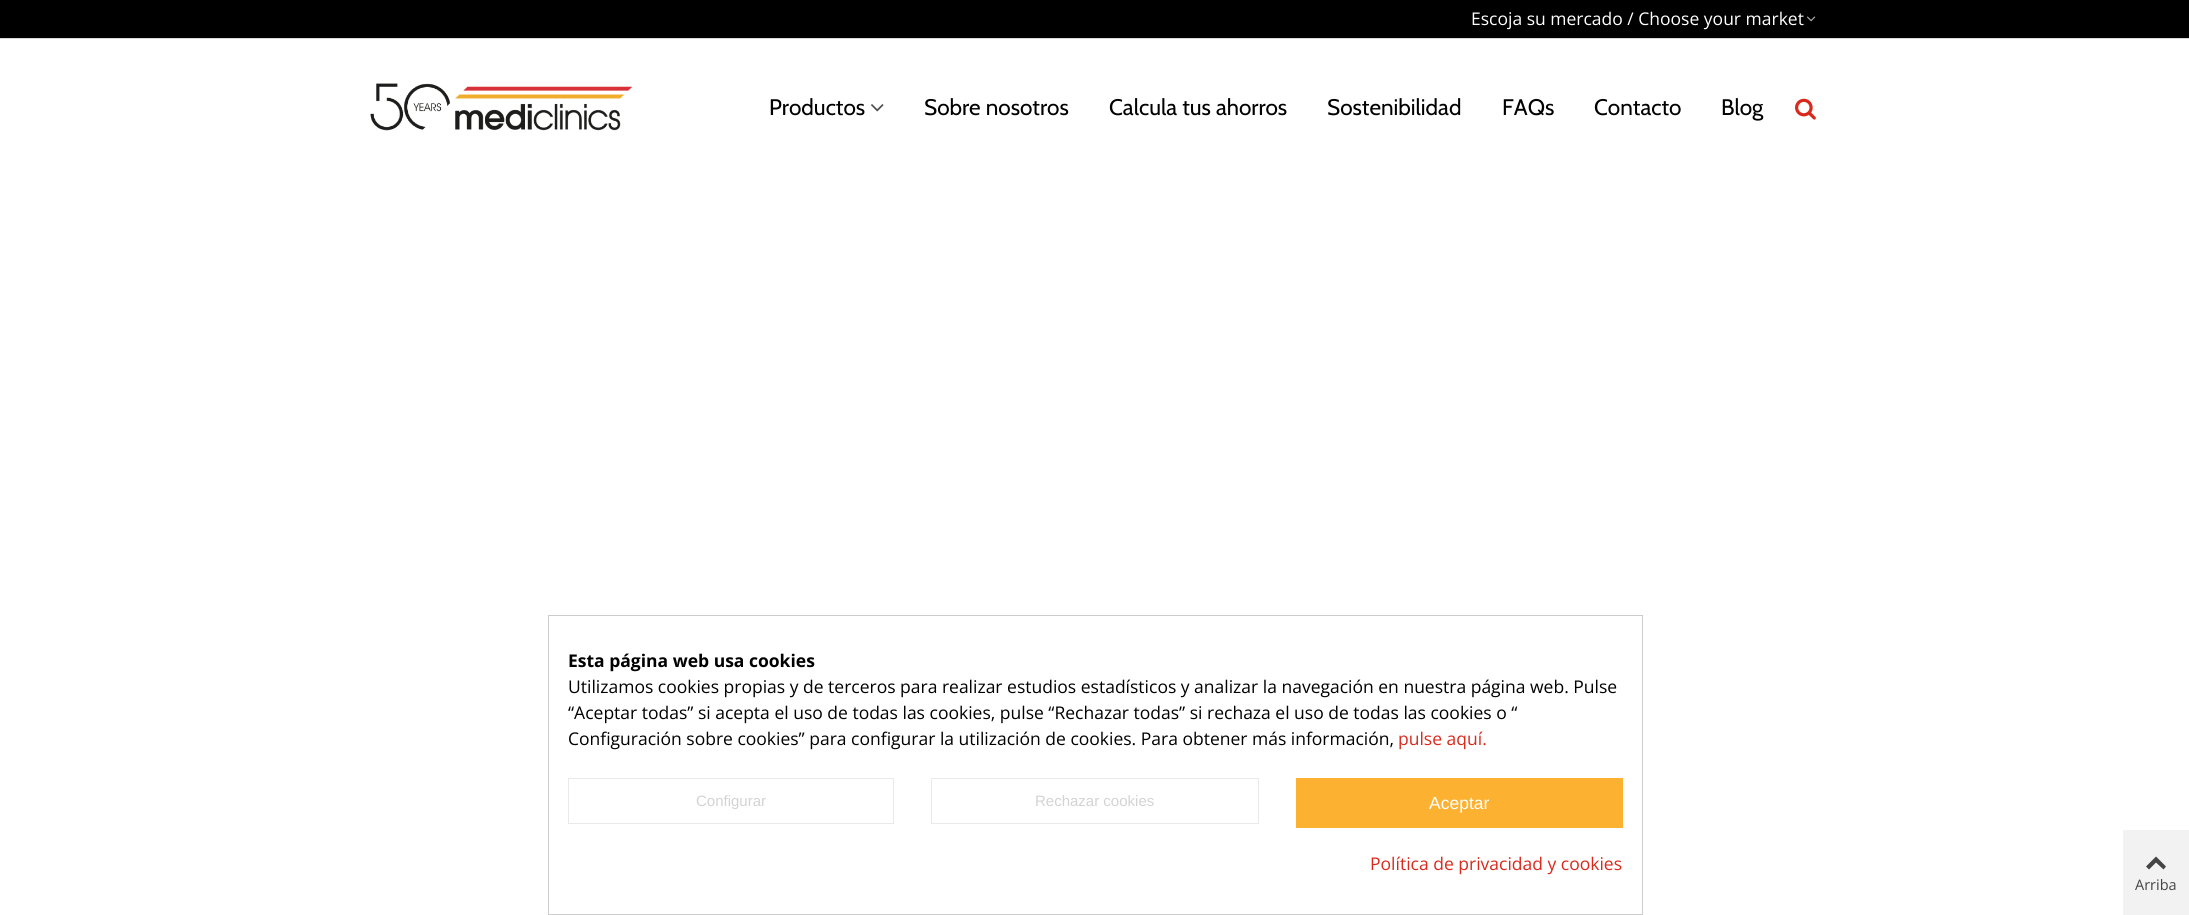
import math
import cairo

surface = cairo.ImageSurface(cairo.FORMAT_RGB24, 2189, 915)
ctx = cairo.Context(surface)
options = cairo.FontOptions()
options.set_hint_metrics(cairo.HINT_METRICS_OFF)
options.set_hint_style(cairo.HINT_STYLE_NONE)
ctx.set_font_options(options)
ctx.set_miter_limit(4)


def picture(path, x, y, w, h):
    ctx.save()
    ctx.set_source_surface(cairo.ImageSurface.create_from_png(path), x, y)
    ctx.rectangle(x, y, w, h)
    ctx.fill()
    ctx.restore()


ctx.set_source_rgb(1, 1, 1)
ctx.paint()
ctx.set_source_rgb(0, 0, 0)
ctx.rectangle(0, 0, 2189, 38)
ctx.fill()
ctx.set_source_rgb(0.851, 0.851, 0.851)
ctx.rectangle(0, 38, 2189, 1)
ctx.fill()
ctx.select_font_face("Open Sans")
ctx.set_font_size(17.5)
ctx.set_source_rgb(1, 1, 1)
ctx.move_to(1471, 25)
ctx.show_text("Escoja su mercado / Choose your market")
picture("img1.png", 1807, 16, 9, 6)
picture("img2.png", 370, 83, 262, 48)
ctx.select_font_face("Cabin")
ctx.set_font_size(22.5)
ctx.set_source_rgb(0, 0, 0)
ctx.move_to(769, 115)
ctx.show_text("Productos")
picture("img3.png", 871, 104, 13, 8)
ctx.move_to(924, 115)
ctx.show_text("Sobre nosotros")
ctx.move_to(1109, 115)
ctx.show_text("Calcula tus ahorros")
ctx.move_to(1327, 115)
ctx.show_text("Sostenibilidad")
ctx.move_to(1502, 115)
ctx.show_text("FAQs")
ctx.move_to(1594, 115)
ctx.show_text("Contacto")
ctx.move_to(1721, 115)
ctx.show_text("Blog")
picture("img4.png", 1795, 98, 21, 22)
ctx.set_source_rgb(0.949, 0.949, 0.949)
ctx.rectangle(2123, 830, 66, 85)
ctx.fill()
ctx.set_source_rgb(0.267, 0.267, 0.267)
ctx.new_path()
ctx.move_to(2146, 866.5)
ctx.line_to(2156, 856.5)
ctx.line_to(2166, 866.5)
ctx.line_to(2163.5, 869.5)
ctx.line_to(2156, 862.5)
ctx.line_to(2149, 869.5)
ctx.close_path()
ctx.fill()
ctx.select_font_face("Open Sans")
ctx.set_font_size(14.5)
ctx.move_to(2135, 890)
ctx.show_text("Arriba")
ctx.rectangle(548.5, 615.5, 1094, 299)
ctx.set_source_rgb(0.8, 0.8, 0.8)
ctx.set_line_width(1)
ctx.stroke()
ctx.select_font_face("Open Sans", cairo.FONT_SLANT_NORMAL, cairo.FONT_WEIGHT_BOLD)
ctx.set_font_size(17.5)
ctx.set_source_rgb(0, 0, 0)
ctx.move_to(568, 667)
ctx.show_text("Esta página web usa cookies")
ctx.select_font_face("Open Sans")
ctx.move_to(568, 693)
ctx.show_text("Utilizamos cookies propias y de terceros para realizar estudios estadísticos y analizar la navegación en nuestra página web. Pulse")
ctx.move_to(568, 719)
ctx.show_text("“Aceptar todas” si acepta el uso de todas las cookies, pulse “Rechazar todas” si rechaza el uso de todas las cookies o “")
ctx.move_to(568, 745)
ctx.show_text("Configuración sobre cookies” para configurar la utilización de cookies. Para obtener más información,")
ctx.set_source_rgb(0.855, 0.161, 0.11)
ctx.move_to(1398, 745)
ctx.show_text("pulse aquí.")
ctx.rectangle(568.5, 778.5, 325, 45)
ctx.set_source_rgb(0.914, 0.914, 0.914)
ctx.stroke()
ctx.select_font_face("Liberation Sans")
ctx.set_font_size(15)
ctx.set_source_rgb(0.827, 0.827, 0.827)
ctx.move_to(696, 806)
ctx.show_text("Configurar")
ctx.rectangle(931.5, 778.5, 327, 45)
ctx.set_source_rgb(0.914, 0.914, 0.914)
ctx.stroke()
ctx.set_source_rgb(0.827, 0.827, 0.827)
ctx.move_to(1035, 806)
ctx.show_text("Rechazar cookies")
ctx.set_source_rgb(0.992, 0.694, 0.192)
ctx.rectangle(1296, 778, 327, 50)
ctx.fill()
ctx.set_font_size(17.5)
ctx.set_source_rgb(1, 1, 1)
ctx.move_to(1429, 809)
ctx.show_text("Aceptar")
ctx.select_font_face("Open Sans")
ctx.set_source_rgb(0.855, 0.161, 0.11)
ctx.move_to(1370, 870)
ctx.show_text("Política de privacidad y cookies")
surface.write_to_png("page.png")
